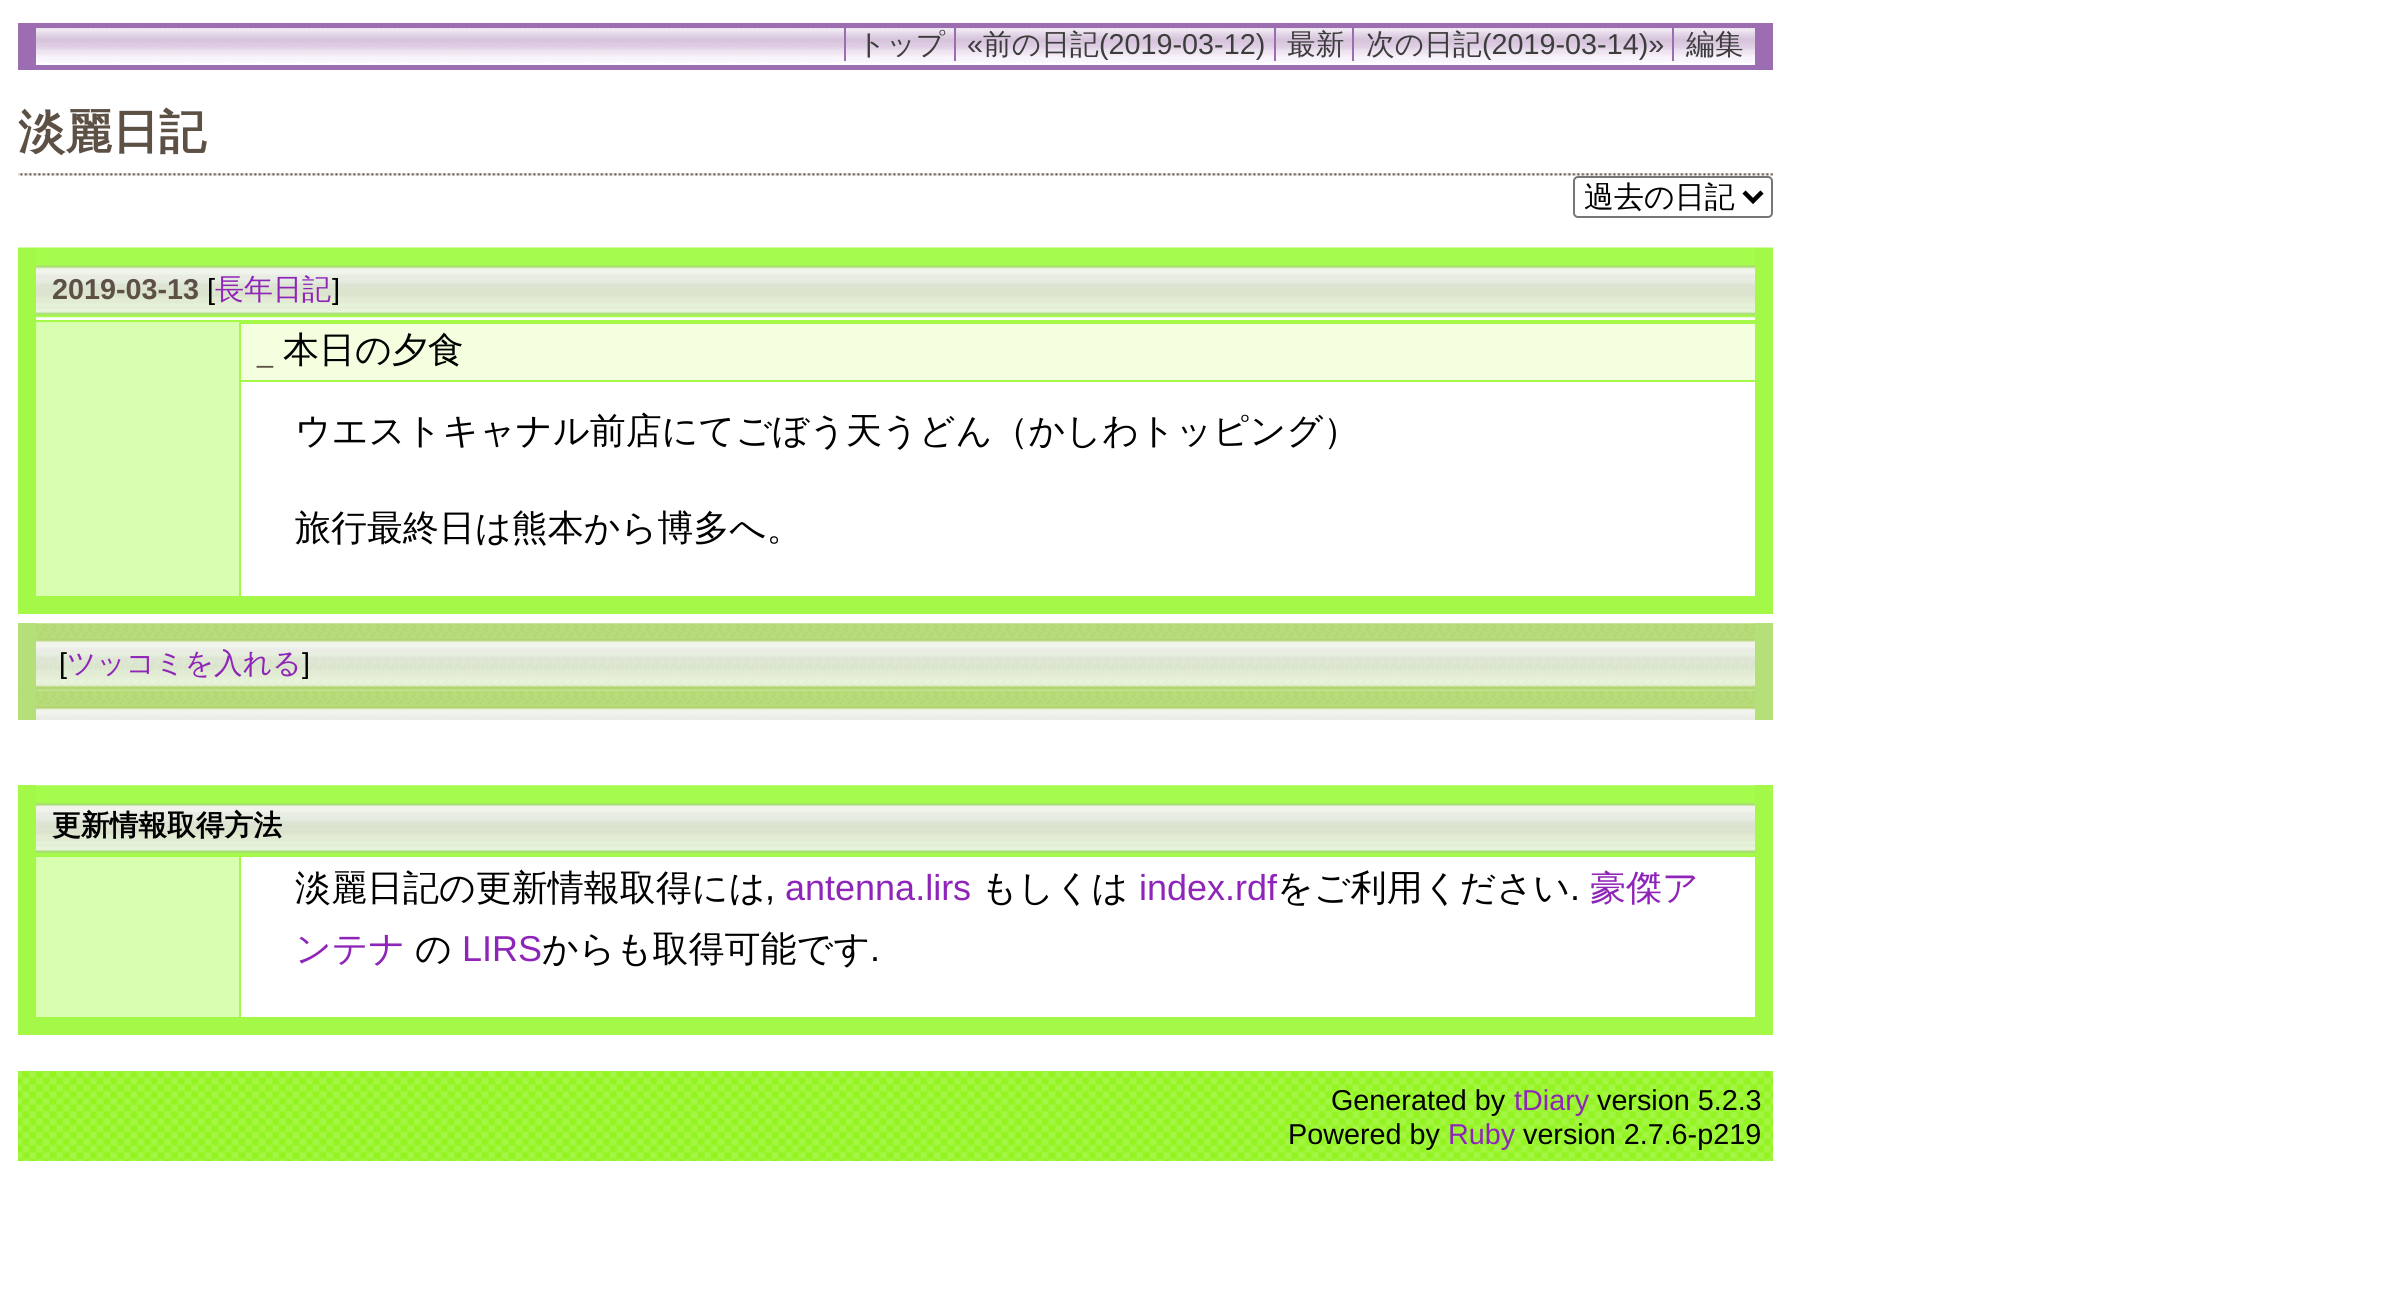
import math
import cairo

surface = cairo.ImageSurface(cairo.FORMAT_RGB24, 2396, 1310)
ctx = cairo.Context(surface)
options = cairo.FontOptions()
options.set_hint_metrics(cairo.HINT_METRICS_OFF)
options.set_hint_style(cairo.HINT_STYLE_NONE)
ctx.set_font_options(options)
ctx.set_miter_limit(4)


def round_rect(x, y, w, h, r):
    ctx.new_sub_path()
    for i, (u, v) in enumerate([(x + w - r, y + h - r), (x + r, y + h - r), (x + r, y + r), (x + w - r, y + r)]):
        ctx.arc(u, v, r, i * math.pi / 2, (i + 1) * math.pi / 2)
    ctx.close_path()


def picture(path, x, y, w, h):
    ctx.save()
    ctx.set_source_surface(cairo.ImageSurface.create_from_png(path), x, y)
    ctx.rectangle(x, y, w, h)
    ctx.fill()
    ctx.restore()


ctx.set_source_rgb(1, 1, 1)
ctx.paint()
picture("img1.png", 36, 28, 1719, 35)
ctx.set_source_rgb(0.612, 0.427, 0.694)
ctx.rectangle(36, 23, 1719, 5)
ctx.fill()
ctx.rectangle(1755, 23, 18, 42)
ctx.fill()
ctx.rectangle(36, 65, 1737, 5)
ctx.fill()
ctx.rectangle(18, 23, 18, 47)
ctx.fill()
ctx.select_font_face("WenQuanYi Zen Hei Medium")
ctx.set_font_size(28.75)
ctx.set_source_rgb(0.239, 0.239, 0.239)
ctx.move_to(857, 54)
ctx.show_text("トップ")
ctx.set_source_rgb(0.612, 0.427, 0.694)
ctx.rectangle(844, 27, 2, 34)
ctx.fill()
ctx.select_font_face("Liberation Sans")
ctx.set_source_rgb(0.239, 0.239, 0.239)
ctx.move_to(967, 54)
ctx.show_text("«")
ctx.set_source_rgb(0.612, 0.427, 0.694)
ctx.rectangle(954, 27, 2, 34)
ctx.fill()
ctx.select_font_face("WenQuanYi Zen Hei Medium")
ctx.set_source_rgb(0.239, 0.239, 0.239)
ctx.move_to(983, 54)
ctx.show_text("前の日記")
ctx.select_font_face("Liberation Sans")
ctx.move_to(1099, 54)
ctx.show_text("(2019-03-12)")
ctx.select_font_face("WenQuanYi Zen Hei Medium")
ctx.move_to(1287, 54)
ctx.show_text("最新")
ctx.set_source_rgb(0.612, 0.427, 0.694)
ctx.rectangle(1274, 27, 2, 34)
ctx.fill()
ctx.set_source_rgb(0.239, 0.239, 0.239)
ctx.move_to(1366, 54)
ctx.show_text("次の日記")
ctx.set_source_rgb(0.612, 0.427, 0.694)
ctx.rectangle(1352, 27, 2, 34)
ctx.fill()
ctx.select_font_face("Liberation Sans")
ctx.set_source_rgb(0.239, 0.239, 0.239)
ctx.move_to(1482, 54)
ctx.show_text("(2019-03-14)»")
ctx.select_font_face("WenQuanYi Zen Hei Medium")
ctx.move_to(1686, 54)
ctx.show_text("編集")
ctx.set_source_rgb(0.612, 0.427, 0.694)
ctx.rectangle(1672, 27, 2, 34)
ctx.fill()
picture("img2.png", 18, 173, 1755, 3)
ctx.select_font_face("WenQuanYi Zen Hei", cairo.FONT_SLANT_NORMAL, cairo.FONT_WEIGHT_BOLD)
ctx.set_font_size(47)
ctx.set_source_rgb(0.365, 0.314, 0.271)
ctx.move_to(18, 148)
ctx.show_text("淡麗日記")
round_rect(1574, 177, 198, 40, 4)
ctx.set_source_rgb(0.463, 0.463, 0.463)
ctx.stroke()
ctx.new_path()
ctx.move_to(1744, 192)
ctx.line_to(1753, 201)
ctx.line_to(1762, 192)
ctx.set_source_rgb(0, 0, 0)
ctx.set_line_width(4.5)
ctx.stroke()
ctx.select_font_face("WenQuanYi Zen Hei Medium")
ctx.set_font_size(30)
ctx.move_to(1584, 207)
ctx.show_text("過去の日記")
picture("img3.png", 18, 247, 1755, 71)
ctx.set_source_rgb(0.643, 0.973, 0.282)
ctx.rectangle(1755, 248, 18, 348)
ctx.fill()
ctx.rectangle(18, 248, 18, 366)
ctx.fill()
ctx.select_font_face("Liberation Sans", cairo.FONT_SLANT_NORMAL, cairo.FONT_WEIGHT_BOLD)
ctx.set_font_size(28.75)
ctx.set_source_rgb(0.365, 0.314, 0.271)
ctx.move_to(52, 299)
ctx.show_text("2019-03-13")
ctx.select_font_face("Liberation Sans")
ctx.set_font_size(29)
ctx.set_source_rgb(0, 0, 0)
ctx.move_to(207, 299)
ctx.show_text("[")
ctx.select_font_face("WenQuanYi Zen Hei Medium")
ctx.set_source_rgb(0.561, 0.145, 0.722)
ctx.move_to(215, 299)
ctx.show_text("長年日記")
ctx.select_font_face("Liberation Sans")
ctx.set_source_rgb(0, 0, 0)
ctx.move_to(332, 299)
ctx.show_text("]")
ctx.set_source_rgb(0.847, 1, 0.69)
ctx.rectangle(36, 322, 203, 274)
ctx.fill()
ctx.set_source_rgb(0.643, 0.973, 0.282)
ctx.rectangle(36, 320, 1719, 2)
ctx.fill()
ctx.rectangle(36, 596, 1737, 18)
ctx.fill()
ctx.rectangle(239, 322, 2, 274)
ctx.fill()
ctx.set_source_rgb(0.957, 1, 0.878)
ctx.rectangle(241, 324, 1514, 56)
ctx.fill()
ctx.set_source_rgb(0.643, 0.973, 0.282)
ctx.rectangle(241, 322, 1514, 2)
ctx.fill()
ctx.rectangle(241, 380, 1514, 2)
ctx.fill()
ctx.set_font_size(28.75)
ctx.set_source_rgb(0.365, 0.314, 0.271)
ctx.move_to(257, 362)
ctx.show_text("_")
ctx.select_font_face("WenQuanYi Zen Hei Medium")
ctx.set_font_size(36)
ctx.set_source_rgb(0, 0, 0)
ctx.move_to(283, 362)
ctx.show_text("本日の夕食")
ctx.move_to(295, 443)
ctx.show_text("ウエストキャナル前店にてごぼう天うどん（かしわトッピング）")
ctx.move_to(295, 540)
ctx.show_text("旅行最終日は熊本から博多へ。")
picture("img4.png", 36, 623, 1719, 68)
ctx.set_source_rgb(0.706, 0.875, 0.475)
ctx.rectangle(1755, 623, 18, 68)
ctx.fill()
ctx.rectangle(18, 623, 18, 68)
ctx.fill()
ctx.select_font_face("Liberation Sans")
ctx.set_font_size(28.75)
ctx.set_source_rgb(0, 0, 0)
ctx.move_to(59, 673)
ctx.show_text("[")
ctx.select_font_face("WenQuanYi Zen Hei Medium")
ctx.set_source_rgb(0.561, 0.145, 0.722)
ctx.move_to(67, 673)
ctx.show_text("ツッコミを入れる")
ctx.select_font_face("Liberation Sans")
ctx.set_source_rgb(0, 0, 0)
ctx.move_to(302, 673)
ctx.show_text("]")
picture("img5.png", 18, 690, 1755, 30)
ctx.set_source_rgb(0.706, 0.875, 0.475)
ctx.rectangle(1755, 691, 18, 29)
ctx.fill()
ctx.rectangle(18, 691, 18, 29)
ctx.fill()
picture("img6.png", 36, 785, 1719, 70)
ctx.set_source_rgb(0.643, 0.973, 0.282)
ctx.rectangle(1755, 785, 18, 232)
ctx.fill()
ctx.rectangle(18, 785, 18, 250)
ctx.fill()
ctx.select_font_face("WenQuanYi Zen Hei", cairo.FONT_SLANT_NORMAL, cairo.FONT_WEIGHT_BOLD)
ctx.set_source_rgb(0, 0, 0)
ctx.move_to(52, 835)
ctx.show_text("更新情報取得方法")
ctx.set_source_rgb(0.847, 1, 0.69)
ctx.rectangle(36, 857, 203, 160)
ctx.fill()
ctx.set_source_rgb(0.643, 0.973, 0.282)
ctx.rectangle(36, 855, 1719, 2)
ctx.fill()
ctx.rectangle(36, 1017, 1737, 18)
ctx.fill()
ctx.rectangle(239, 857, 2, 160)
ctx.fill()
ctx.select_font_face("WenQuanYi Zen Hei Medium")
ctx.set_font_size(36)
ctx.set_source_rgb(0, 0, 0)
ctx.move_to(295, 900)
ctx.show_text("淡麗日記の更新情報取得には")
ctx.select_font_face("Liberation Sans")
ctx.move_to(765, 900)
ctx.show_text(",")
ctx.set_source_rgb(0.561, 0.145, 0.722)
ctx.move_to(785, 900)
ctx.show_text("antenna.lirs")
ctx.select_font_face("WenQuanYi Zen Hei Medium")
ctx.set_source_rgb(0, 0, 0)
ctx.move_to(981, 900)
ctx.show_text("もしくは")
ctx.select_font_face("Liberation Sans")
ctx.set_source_rgb(0.561, 0.145, 0.722)
ctx.move_to(1139, 900)
ctx.show_text("index.rdf")
ctx.select_font_face("WenQuanYi Zen Hei Medium")
ctx.set_source_rgb(0, 0, 0)
ctx.move_to(1277, 900)
ctx.show_text("をご利用ください")
ctx.select_font_face("Liberation Sans")
ctx.move_to(1570, 900)
ctx.show_text(".")
ctx.select_font_face("WenQuanYi Zen Hei Medium")
ctx.set_source_rgb(0.561, 0.145, 0.722)
ctx.move_to(1590, 900)
ctx.show_text("豪傑ア")
ctx.move_to(295, 961)
ctx.show_text("ンテナ")
ctx.set_source_rgb(0, 0, 0)
ctx.move_to(415, 961)
ctx.show_text("の")
ctx.select_font_face("Liberation Sans")
ctx.set_source_rgb(0.561, 0.145, 0.722)
ctx.move_to(462, 961)
ctx.show_text("LIRS")
ctx.select_font_face("WenQuanYi Zen Hei Medium")
ctx.set_source_rgb(0, 0, 0)
ctx.move_to(542, 961)
ctx.show_text("からも取得可能です")
ctx.select_font_face("Liberation Sans")
ctx.move_to(870, 961)
ctx.show_text(".")
picture("img7.png", 18, 1071, 1755, 90)
ctx.set_font_size(28.75)
ctx.move_to(1331, 1110)
ctx.show_text("Generated by")
ctx.set_source_rgb(0.561, 0.145, 0.722)
ctx.move_to(1514, 1110)
ctx.show_text("tDiary")
ctx.set_source_rgb(0, 0, 0)
ctx.move_to(1597, 1110)
ctx.show_text("version 5.2.3")
ctx.move_to(1288, 1144)
ctx.show_text("Powered by")
ctx.set_source_rgb(0.561, 0.145, 0.722)
ctx.move_to(1448, 1144)
ctx.show_text("Ruby")
ctx.set_source_rgb(0, 0, 0)
ctx.move_to(1523, 1144)
ctx.show_text("version 2.7.6-p219")
surface.write_to_png("page.png")
